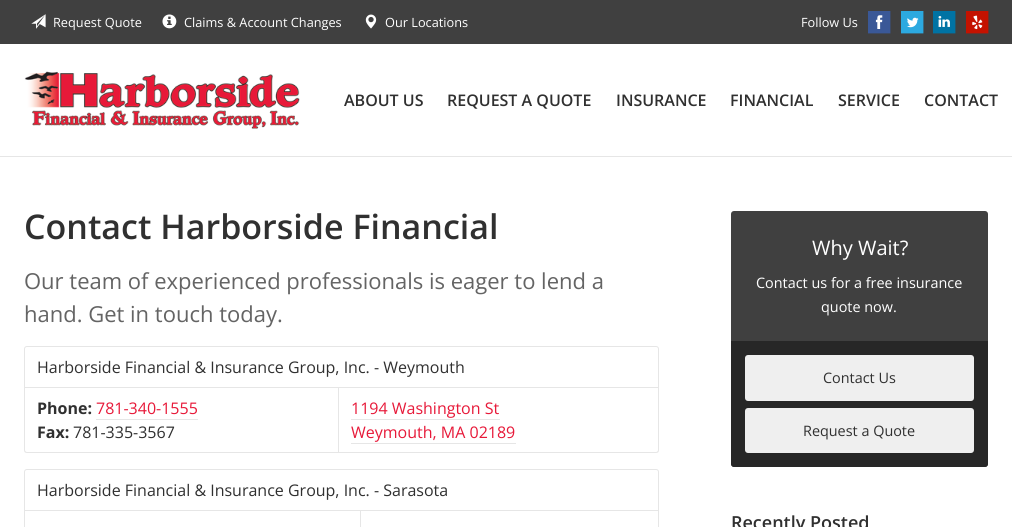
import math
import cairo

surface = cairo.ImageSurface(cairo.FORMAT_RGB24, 1012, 527)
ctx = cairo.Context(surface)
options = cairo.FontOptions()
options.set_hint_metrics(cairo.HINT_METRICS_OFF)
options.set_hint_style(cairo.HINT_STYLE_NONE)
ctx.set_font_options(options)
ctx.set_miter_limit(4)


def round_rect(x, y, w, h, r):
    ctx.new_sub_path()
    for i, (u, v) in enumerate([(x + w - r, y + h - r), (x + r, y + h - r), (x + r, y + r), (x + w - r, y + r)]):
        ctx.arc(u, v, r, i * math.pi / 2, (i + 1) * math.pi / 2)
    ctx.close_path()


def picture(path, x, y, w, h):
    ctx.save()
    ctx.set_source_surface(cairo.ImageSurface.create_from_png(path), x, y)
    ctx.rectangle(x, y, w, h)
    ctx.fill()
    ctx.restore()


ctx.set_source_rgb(0.251, 0.251, 0.251)
ctx.paint()
picture("img1.png", 31, 14, 15, 15)
ctx.select_font_face("Open Sans")
ctx.set_font_size(12.75)
ctx.set_source_rgb(1, 1, 1)
ctx.move_to(53, 27)
ctx.show_text("Request Quote")
picture("img2.png", 162, 14, 15, 15)
ctx.move_to(184, 27)
ctx.show_text("Claims & Account Changes")
picture("img3.png", 365, 14, 12, 15)
ctx.move_to(385, 27)
ctx.show_text("Our Locations")
ctx.move_to(801, 27)
ctx.show_text("Follow Us")
ctx.rectangle(875, 15, 8, 14)
ctx.fill()
picture("img4.png", 868, 11, 23, 23)
ctx.rectangle(906, 17, 13, 11)
ctx.fill()
picture("img5.png", 901, 11, 23, 23)
ctx.rectangle(938, 16, 12, 11)
ctx.fill()
picture("img6.png", 933, 11, 23, 23)
ctx.rectangle(972, 15, 11, 15)
ctx.fill()
picture("img7.png", 966, 11, 23, 23)
ctx.rectangle(0, 44, 1012, 112)
ctx.fill()
ctx.set_source_rgb(0.902, 0.902, 0.902)
ctx.rectangle(0, 156, 1012, 1)
ctx.fill()
picture("img8.png", 24, 71, 276, 58)
ctx.select_font_face("Open Sans SemiBold")
ctx.set_font_size(16)
ctx.set_source_rgb(0.188, 0.188, 0.188)
ctx.move_to(344, 106)
ctx.show_text("ABOUT US")
ctx.move_to(447, 106)
ctx.show_text("REQUEST A QUOTE")
ctx.move_to(616, 106)
ctx.show_text("INSURANCE")
ctx.move_to(730, 106)
ctx.show_text("FINANCIAL")
ctx.move_to(838, 106)
ctx.show_text("SERVICE")
ctx.move_to(924, 106)
ctx.show_text("CONTACT")
ctx.set_source_rgb(1, 1, 1)
ctx.rectangle(0, 157, 1012, 370)
ctx.fill()
ctx.set_font_size(34)
ctx.set_source_rgb(0.188, 0.188, 0.188)
ctx.move_to(24, 239)
ctx.show_text("Contact Harborside Financial")
ctx.select_font_face("Open Sans")
ctx.set_font_size(22)
ctx.set_source_rgb(0.392, 0.392, 0.392)
ctx.move_to(24, 289)
ctx.show_text("Our team of experienced professionals is eager to lend a")
ctx.move_to(24, 322)
ctx.show_text("hand. Get in touch today.")
ctx.new_path()
ctx.move_to(27, 346.5)
ctx.line_to(656, 346.5)
ctx.curve_to(657.5, 346.5, 658.5, 347.5, 658.5, 349)
ctx.line_to(658.5, 387.5)
ctx.line_to(24.5, 387.5)
ctx.line_to(24.5, 349)
ctx.curve_to(24.5, 347.5, 25.5, 346.5, 27, 346.5)
ctx.close_path()
ctx.set_source_rgb(0.902, 0.902, 0.902)
ctx.set_line_width(1)
ctx.stroke()
ctx.set_font_size(16)
ctx.set_source_rgb(0.188, 0.188, 0.188)
ctx.move_to(37, 373)
ctx.show_text("Harborside Financial & Insurance Group, Inc. - Weymouth")
ctx.set_source_rgb(0.902, 0.902, 0.902)
ctx.set_fill_rule(cairo.FILL_RULE_EVEN_ODD)
ctx.new_path()
ctx.move_to(24, 388)
ctx.line_to(339, 388)
ctx.line_to(339, 453)
ctx.line_to(27, 453)
ctx.curve_to(25, 453, 24, 452, 24, 450)
ctx.close_path()
ctx.move_to(25, 388)
ctx.line_to(338, 388)
ctx.line_to(338, 452)
ctx.line_to(27, 452)
ctx.curve_to(26, 452, 25, 451, 25, 450)
ctx.close_path()
ctx.fill()
ctx.select_font_face("Open Sans", cairo.FONT_SLANT_NORMAL, cairo.FONT_WEIGHT_BOLD)
ctx.set_source_rgb(0.188, 0.188, 0.188)
ctx.move_to(37, 414)
ctx.show_text("Phone:")
ctx.select_font_face("Open Sans")
ctx.set_source_rgb(0.906, 0.098, 0.224)
ctx.move_to(96, 414)
ctx.show_text("781-340-1555")
ctx.set_source_rgb(0.902, 0.902, 0.902)
ctx.rectangle(96, 419, 102, 1)
ctx.fill()
ctx.select_font_face("Open Sans", cairo.FONT_SLANT_NORMAL, cairo.FONT_WEIGHT_BOLD)
ctx.set_source_rgb(0.188, 0.188, 0.188)
ctx.move_to(37, 438)
ctx.show_text("Fax:")
ctx.select_font_face("Open Sans")
ctx.move_to(73, 438)
ctx.show_text("781-335-3567")
ctx.set_source_rgb(0.902, 0.902, 0.902)
ctx.new_path()
ctx.move_to(339, 388)
ctx.line_to(659, 388)
ctx.line_to(659, 450)
ctx.curve_to(659, 452, 658, 453, 656, 453)
ctx.line_to(339, 453)
ctx.close_path()
ctx.move_to(339, 388)
ctx.line_to(658, 388)
ctx.line_to(658, 450)
ctx.curve_to(658, 451, 657, 452, 656, 452)
ctx.line_to(339, 452)
ctx.close_path()
ctx.fill()
ctx.set_source_rgb(0.906, 0.098, 0.224)
ctx.move_to(351, 414)
ctx.show_text("1194 Washington St")
ctx.set_source_rgb(0.902, 0.902, 0.902)
ctx.rectangle(351, 419, 149, 1)
ctx.fill()
ctx.set_source_rgb(0.906, 0.098, 0.224)
ctx.move_to(351, 438)
ctx.show_text("Weymouth, MA 02189")
ctx.set_source_rgb(0.902, 0.902, 0.902)
ctx.rectangle(351, 443, 165, 1)
ctx.fill()
ctx.new_path()
ctx.move_to(27, 469.5)
ctx.line_to(656, 469.5)
ctx.curve_to(657.5, 469.5, 658.5, 470.5, 658.5, 472)
ctx.line_to(658.5, 510.5)
ctx.line_to(24.5, 510.5)
ctx.line_to(24.5, 472)
ctx.curve_to(24.5, 470.5, 25.5, 469.5, 27, 469.5)
ctx.close_path()
ctx.stroke()
ctx.set_source_rgb(0.188, 0.188, 0.188)
ctx.move_to(37, 496)
ctx.show_text("Harborside Financial & Insurance Group, Inc. - Sarasota")
ctx.set_source_rgb(0.902, 0.902, 0.902)
ctx.new_path()
ctx.move_to(24, 511)
ctx.line_to(361, 511)
ctx.line_to(361, 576)
ctx.line_to(27, 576)
ctx.curve_to(25, 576, 24, 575, 24, 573)
ctx.close_path()
ctx.move_to(25, 511)
ctx.line_to(360, 511)
ctx.line_to(360, 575)
ctx.line_to(27, 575)
ctx.curve_to(26, 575, 25, 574, 25, 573)
ctx.close_path()
ctx.fill()
ctx.new_path()
ctx.move_to(361, 511)
ctx.line_to(659, 511)
ctx.line_to(659, 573)
ctx.curve_to(659, 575, 658, 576, 656, 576)
ctx.line_to(361, 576)
ctx.close_path()
ctx.move_to(361, 511)
ctx.line_to(658, 511)
ctx.line_to(658, 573)
ctx.curve_to(658, 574, 657, 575, 656, 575)
ctx.line_to(361, 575)
ctx.close_path()
ctx.fill()
ctx.set_source_rgb(0.251, 0.251, 0.251)
round_rect(731, 211, 257, 256, 3)
ctx.fill()
ctx.set_font_size(20)
ctx.set_source_rgb(1, 1, 1)
ctx.move_to(812, 255)
ctx.show_text("Why Wait?")
ctx.set_font_size(14.4)
ctx.move_to(756, 288)
ctx.show_text("Contact us for a free insurance")
ctx.move_to(821, 312)
ctx.show_text("quote now.")
ctx.set_source_rgb(0.153, 0.153, 0.153)
ctx.new_path()
ctx.move_to(731, 341)
ctx.line_to(988, 341)
ctx.line_to(988, 464)
ctx.curve_to(988, 465.5, 986.5, 467, 985, 467)
ctx.line_to(734, 467)
ctx.curve_to(732.5, 467, 731, 465.5, 731, 464)
ctx.close_path()
ctx.fill()
ctx.set_source_rgb(0.937, 0.937, 0.937)
round_rect(745, 355, 229, 46, 3)
ctx.fill()
ctx.set_source_rgb(0.188, 0.188, 0.188)
ctx.move_to(823, 383)
ctx.show_text("Contact Us")
ctx.set_source_rgb(0.937, 0.937, 0.937)
round_rect(745, 408, 229, 45, 3)
ctx.fill()
ctx.set_source_rgb(0.188, 0.188, 0.188)
ctx.move_to(803, 436)
ctx.show_text("Request a Quote")
ctx.select_font_face("Open Sans SemiBold")
ctx.set_font_size(18)
ctx.move_to(731, 529)
ctx.show_text("Recently Posted")
surface.write_to_png("page.png")
